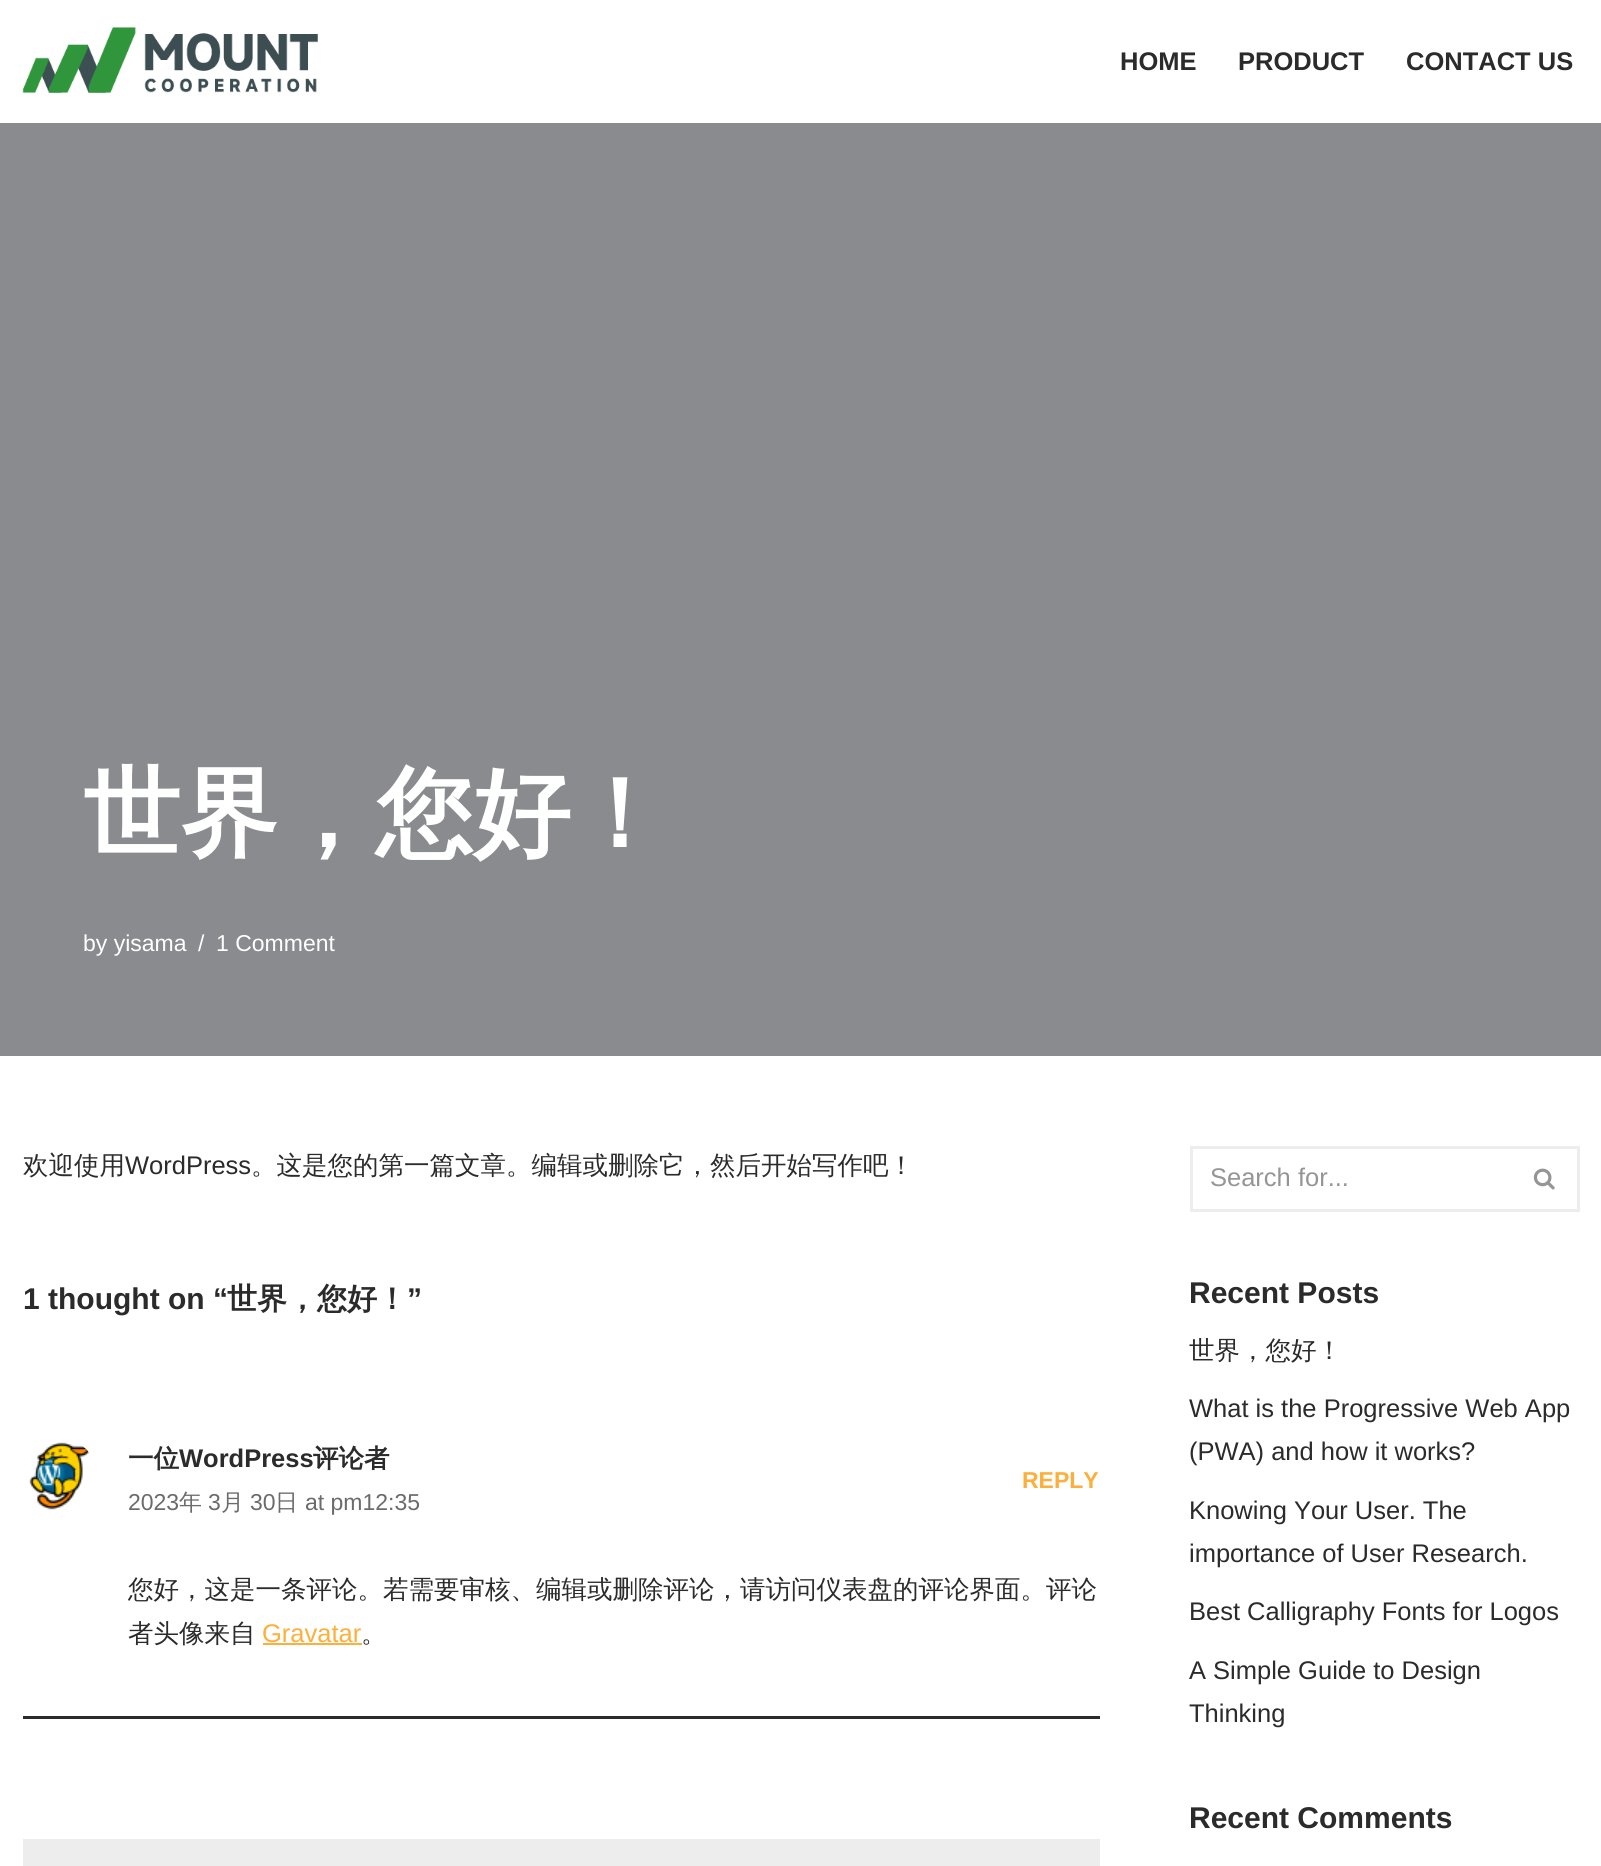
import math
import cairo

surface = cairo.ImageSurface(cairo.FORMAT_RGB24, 1601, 1866)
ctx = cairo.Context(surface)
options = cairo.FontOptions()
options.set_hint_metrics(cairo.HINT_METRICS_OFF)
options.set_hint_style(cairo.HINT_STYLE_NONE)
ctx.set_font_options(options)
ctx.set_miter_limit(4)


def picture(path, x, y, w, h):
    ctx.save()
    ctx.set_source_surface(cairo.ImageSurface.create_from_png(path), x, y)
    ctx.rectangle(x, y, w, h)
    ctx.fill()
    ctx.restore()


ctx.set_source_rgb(1, 1, 1)
ctx.paint()
ctx.set_source_rgb(0.541, 0.545, 0.557)
ctx.rectangle(0, 123, 1601, 933)
ctx.fill()
picture("img1.png", 22, 27, 296, 66)
ctx.select_font_face("Liberation Sans", cairo.FONT_SLANT_NORMAL, cairo.FONT_WEIGHT_BOLD)
ctx.set_font_size(25.5)
ctx.set_source_rgb(0.169, 0.169, 0.169)
ctx.move_to(1120, 70)
ctx.show_text("HOME")
ctx.move_to(1238, 70)
ctx.show_text("PRODUCT")
ctx.move_to(1406, 70)
ctx.show_text("CONTACT US")
ctx.select_font_face("WenQuanYi Zen Hei", cairo.FONT_SLANT_NORMAL, cairo.FONT_WEIGHT_BOLD)
ctx.set_font_size(97.5)
ctx.set_source_rgb(1, 1, 1)
ctx.move_to(83, 847)
ctx.show_text("世界，您好！")
ctx.select_font_face("Liberation Sans")
ctx.set_font_size(23)
ctx.move_to(83, 951)
ctx.show_text("by yisama")
ctx.move_to(198, 951)
ctx.show_text("/")
ctx.move_to(216, 951)
ctx.show_text("1 Comment")
ctx.select_font_face("WenQuanYi Zen Hei Medium")
ctx.set_font_size(25.5)
ctx.set_source_rgb(0.169, 0.169, 0.169)
ctx.move_to(23, 1174)
ctx.show_text("欢迎使用")
ctx.select_font_face("Liberation Sans")
ctx.move_to(125, 1174)
ctx.show_text("WordPress")
ctx.select_font_face("WenQuanYi Zen Hei Medium")
ctx.move_to(251, 1174)
ctx.show_text("。这是您的第一篇文章。编辑或删除它，然后开始写作吧！")
ctx.select_font_face("Liberation Sans", cairo.FONT_SLANT_NORMAL, cairo.FONT_WEIGHT_BOLD)
ctx.set_font_size(30)
ctx.move_to(23, 1309)
ctx.show_text("1 thought on “")
ctx.select_font_face("WenQuanYi Zen Hei", cairo.FONT_SLANT_NORMAL, cairo.FONT_WEIGHT_BOLD)
ctx.move_to(227, 1309)
ctx.show_text("世界，您好！")
ctx.select_font_face("Liberation Sans", cairo.FONT_SLANT_NORMAL, cairo.FONT_WEIGHT_BOLD)
ctx.move_to(407, 1309)
ctx.show_text("”")
ctx.rectangle(23, 1716, 1077, 3)
ctx.fill()
picture("img2.png", 29, 1442, 60, 68)
ctx.select_font_face("WenQuanYi Zen Hei", cairo.FONT_SLANT_NORMAL, cairo.FONT_WEIGHT_BOLD)
ctx.set_font_size(25.5)
ctx.move_to(128, 1467)
ctx.show_text("一位")
ctx.select_font_face("Liberation Sans", cairo.FONT_SLANT_NORMAL, cairo.FONT_WEIGHT_BOLD)
ctx.move_to(179, 1467)
ctx.show_text("WordPress")
ctx.select_font_face("WenQuanYi Zen Hei", cairo.FONT_SLANT_NORMAL, cairo.FONT_WEIGHT_BOLD)
ctx.move_to(313, 1467)
ctx.show_text("评论者")
ctx.select_font_face("Liberation Sans")
ctx.set_font_size(23)
ctx.set_source_rgb(0.42, 0.42, 0.42)
ctx.move_to(128, 1510)
ctx.show_text("2023")
ctx.select_font_face("WenQuanYi Zen Hei Medium")
ctx.move_to(179, 1510)
ctx.show_text("年")
ctx.select_font_face("Liberation Sans")
ctx.move_to(208, 1510)
ctx.show_text("3")
ctx.select_font_face("WenQuanYi Zen Hei Medium")
ctx.move_to(221, 1510)
ctx.show_text("月")
ctx.select_font_face("Liberation Sans")
ctx.move_to(250, 1510)
ctx.show_text("30")
ctx.select_font_face("WenQuanYi Zen Hei Medium")
ctx.move_to(275, 1510)
ctx.show_text("日")
ctx.select_font_face("Liberation Sans")
ctx.move_to(305, 1510)
ctx.show_text("at pm12:35")
ctx.select_font_face("Liberation Sans", cairo.FONT_SLANT_NORMAL, cairo.FONT_WEIGHT_BOLD)
ctx.set_source_rgb(0.988, 0.686, 0.231)
ctx.move_to(1022, 1488)
ctx.show_text("REPLY")
ctx.select_font_face("WenQuanYi Zen Hei Medium")
ctx.set_font_size(25.5)
ctx.set_source_rgb(0.169, 0.169, 0.169)
ctx.move_to(128, 1598)
ctx.show_text("您好，这是一条评论。若需要审核、编辑或删除评论，请访问仪表盘的评论界面。评论")
ctx.move_to(128, 1642)
ctx.show_text("者头像来自")
ctx.select_font_face("Liberation Sans")
ctx.set_source_rgb(0.988, 0.686, 0.231)
ctx.move_to(262, 1642)
ctx.show_text("Gravatar")
ctx.rectangle(263, 1643, 99, 2)
ctx.fill()
ctx.select_font_face("WenQuanYi Zen Hei Medium")
ctx.set_source_rgb(0.169, 0.169, 0.169)
ctx.move_to(361, 1642)
ctx.show_text("。")
ctx.set_source_rgb(0.929, 0.929, 0.929)
ctx.rectangle(23, 1839, 1077, 27)
ctx.fill()
ctx.rectangle(1190, 1146, 390, 3)
ctx.fill()
ctx.rectangle(1190, 1209, 322, 3)
ctx.fill()
ctx.rectangle(1190, 1146, 3, 66)
ctx.fill()
ctx.select_font_face("Liberation Sans")
ctx.set_source_rgb(0.584, 0.584, 0.584)
ctx.move_to(1210, 1186)
ctx.show_text("Search for...")
ctx.set_source_rgb(0.929, 0.929, 0.929)
ctx.rectangle(1577, 1146, 3, 66)
ctx.fill()
ctx.rectangle(1512, 1209, 68, 3)
ctx.fill()
picture("img3.png", 1533, 1168, 22, 22)
ctx.select_font_face("Liberation Sans", cairo.FONT_SLANT_NORMAL, cairo.FONT_WEIGHT_BOLD)
ctx.set_font_size(30)
ctx.set_source_rgb(0.169, 0.169, 0.169)
ctx.move_to(1189, 1303)
ctx.show_text("Recent Posts")
ctx.select_font_face("WenQuanYi Zen Hei Medium")
ctx.set_font_size(25.5)
ctx.move_to(1189, 1359)
ctx.show_text("世界，您好！")
ctx.select_font_face("Liberation Sans")
ctx.move_to(1189, 1417)
ctx.show_text("What is the Progressive Web App")
ctx.move_to(1189, 1460)
ctx.show_text("(PWA) and how it works?")
ctx.move_to(1189, 1519)
ctx.show_text("Knowing Your User. The")
ctx.move_to(1189, 1562)
ctx.show_text("importance of User Research.")
ctx.move_to(1189, 1620)
ctx.show_text("Best Calligraphy Fonts for Logos")
ctx.move_to(1189, 1679)
ctx.show_text("A Simple Guide to Design")
ctx.move_to(1189, 1722)
ctx.show_text("Thinking")
ctx.select_font_face("Liberation Sans", cairo.FONT_SLANT_NORMAL, cairo.FONT_WEIGHT_BOLD)
ctx.set_font_size(30)
ctx.move_to(1189, 1828)
ctx.show_text("Recent Comments")
surface.write_to_png("page.png")
